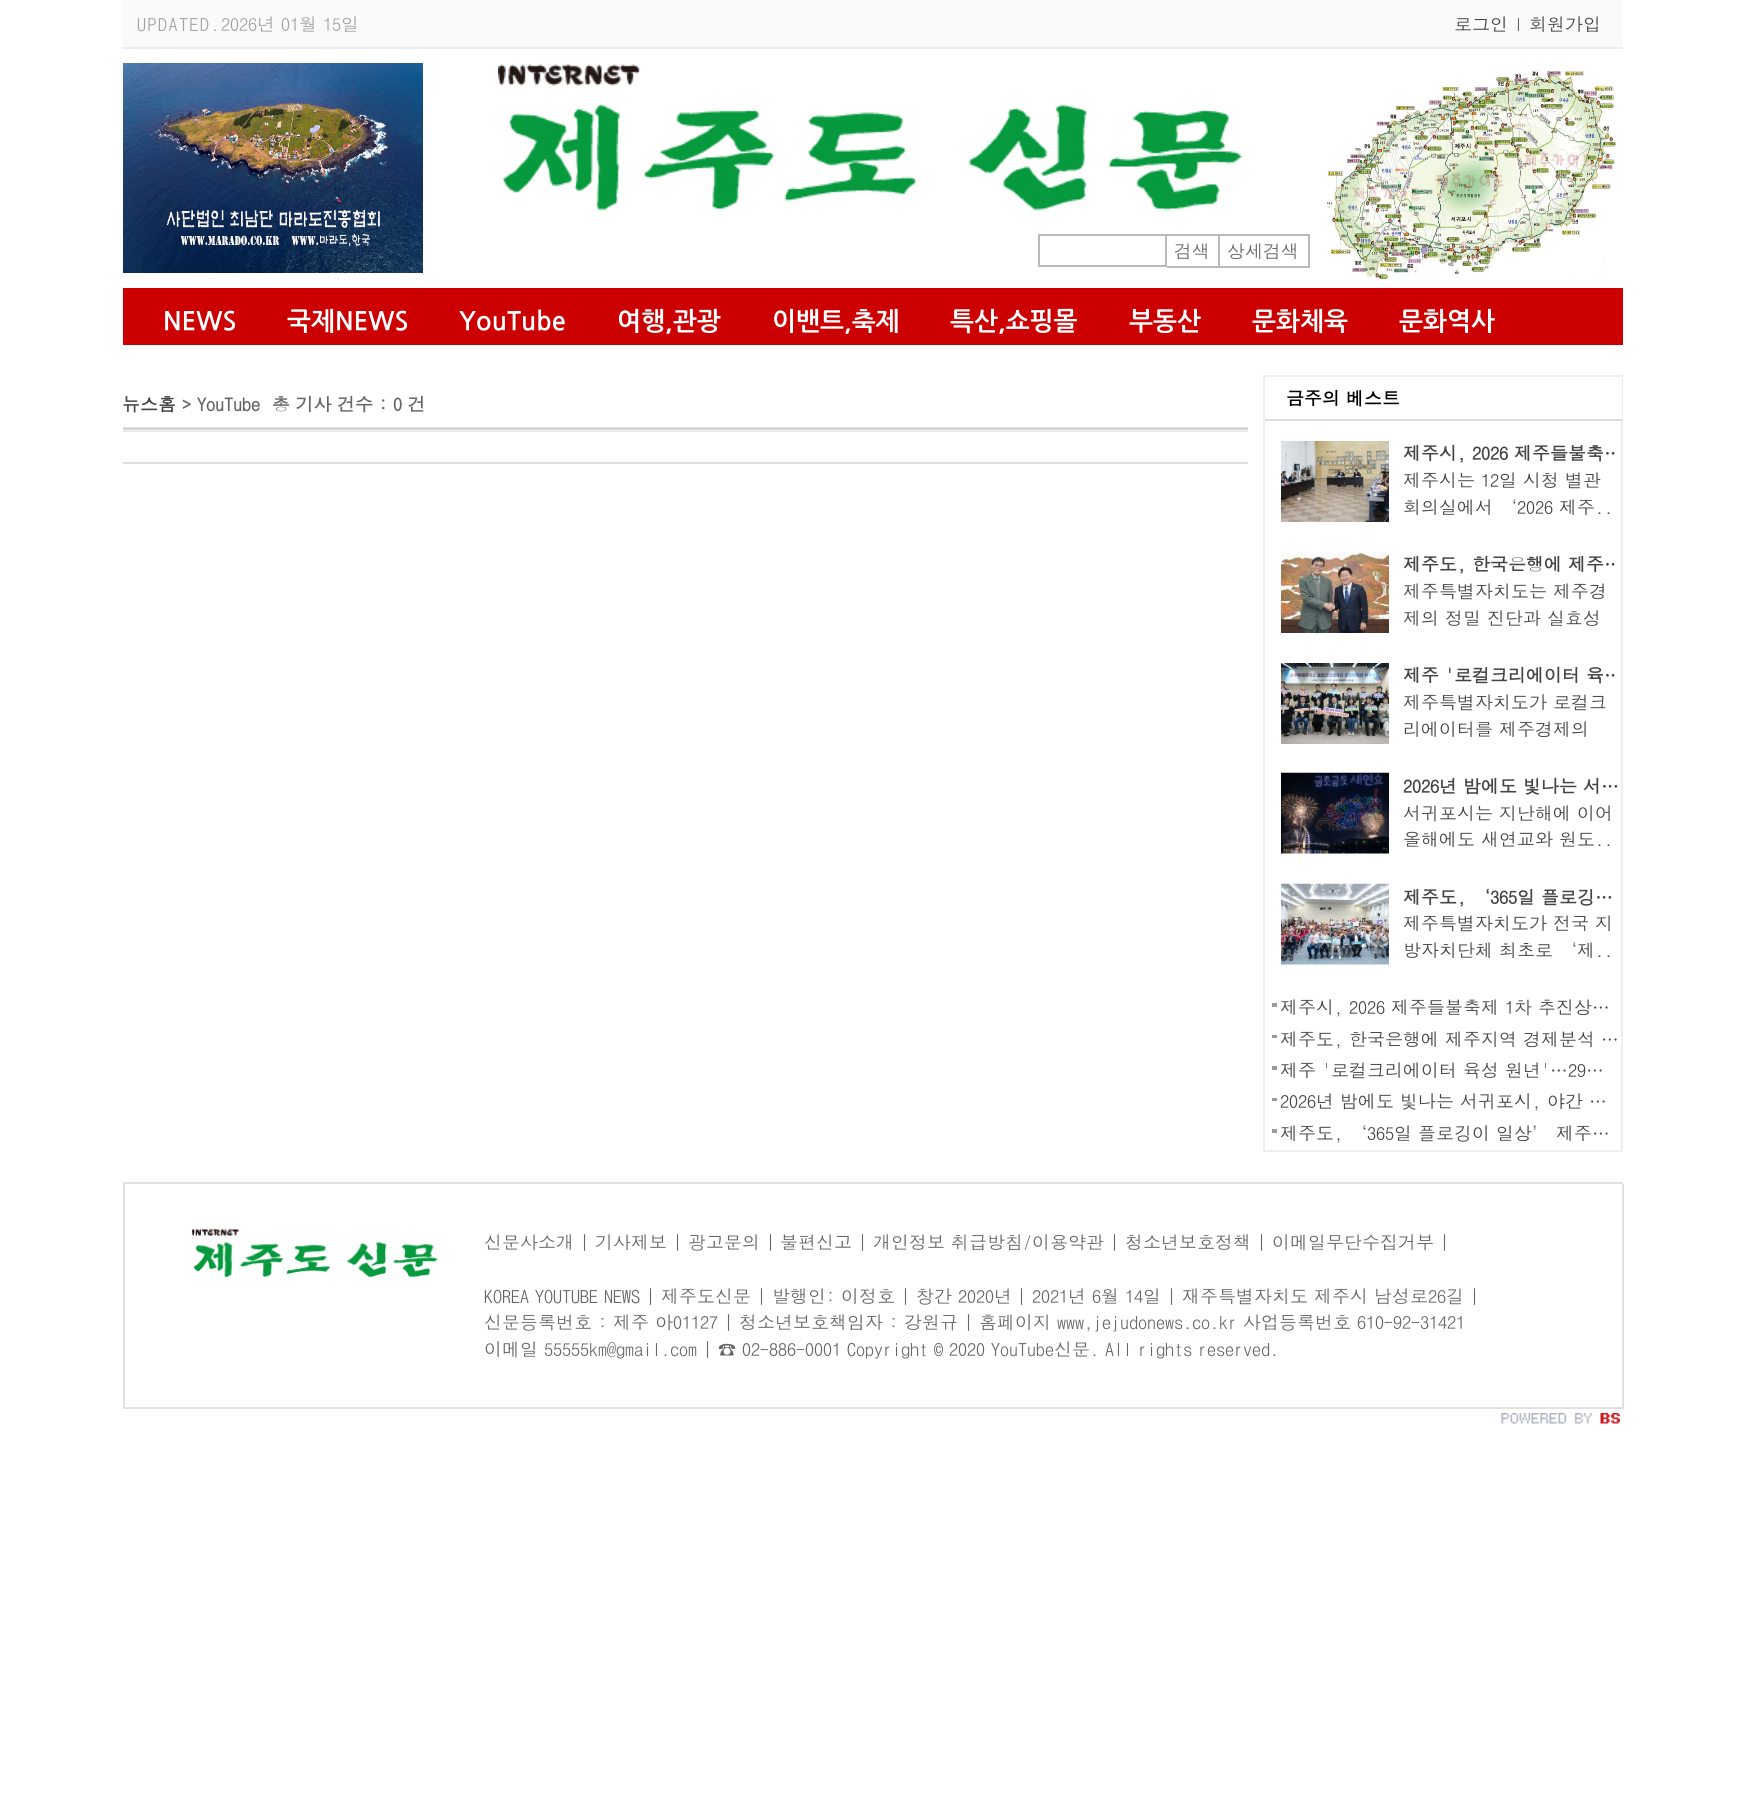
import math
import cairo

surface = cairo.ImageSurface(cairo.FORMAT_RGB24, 1744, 1793)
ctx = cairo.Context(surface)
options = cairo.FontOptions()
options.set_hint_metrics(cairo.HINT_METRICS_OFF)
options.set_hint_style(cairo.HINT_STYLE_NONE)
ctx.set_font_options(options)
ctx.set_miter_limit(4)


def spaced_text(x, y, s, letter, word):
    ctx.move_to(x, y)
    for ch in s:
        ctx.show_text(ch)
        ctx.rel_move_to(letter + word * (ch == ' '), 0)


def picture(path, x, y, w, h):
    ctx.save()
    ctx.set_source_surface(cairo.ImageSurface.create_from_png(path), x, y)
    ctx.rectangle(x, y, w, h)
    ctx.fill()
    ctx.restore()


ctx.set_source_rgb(1, 1, 1)
ctx.paint()
ctx.set_source_rgb(0.98, 0.98, 0.98)
ctx.rectangle(123, 0, 1500, 47)
ctx.fill()
ctx.select_font_face("DotumChe")
ctx.set_font_size(18)
ctx.set_source_rgb(0.635, 0.635, 0.635)
spaced_text(137, 31, "UPDATED.", 1.5, 0)
spaced_text(221, 31, "2026년 01월 15일", 0, -3)
ctx.set_source_rgb(0.929, 0.929, 0.929)
ctx.rectangle(122, 47, 1501, 2)
ctx.fill()
ctx.set_source_rgb(0.271, 0.267, 0.267)
ctx.move_to(1454, 31)
ctx.show_text("로그인")
ctx.set_source_rgb(0.4, 0.4, 0.4)
ctx.move_to(1514, 31)
ctx.show_text("l")
ctx.set_source_rgb(0.271, 0.267, 0.267)
ctx.move_to(1529, 31)
ctx.show_text("회원가입")
picture("img1.png", 123, 63, 300, 210)
picture("img2.png", 498, 64, 745, 147)
ctx.rectangle(1039, 235, 127, 31)
ctx.set_source_rgb(0.729, 0.729, 0.729)
ctx.stroke()
ctx.rectangle(1167, 234, 143, 2)
ctx.fill()
ctx.rectangle(1218, 234, 2, 33)
ctx.fill()
ctx.rectangle(1167, 266, 53, 2)
ctx.fill()
ctx.set_source_rgb(0.4, 0.4, 0.4)
ctx.move_to(1174, 258)
ctx.show_text("검색")
ctx.set_source_rgb(0.729, 0.729, 0.729)
ctx.rectangle(1308, 234, 2, 33)
ctx.fill()
ctx.rectangle(1220, 266, 90, 2)
ctx.fill()
ctx.set_source_rgb(0.4, 0.4, 0.4)
ctx.move_to(1227, 258)
ctx.show_text("상세검색")
picture("img3.png", 1327, 68, 289, 214)
ctx.set_source_rgb(0.8, 0, 0)
ctx.rectangle(123, 288, 1500, 57)
ctx.fill()
ctx.select_font_face("NanumGothic", cairo.FONT_SLANT_NORMAL, cairo.FONT_WEIGHT_BOLD)
ctx.set_font_size(25.5)
ctx.set_source_rgb(1, 1, 1)
ctx.move_to(163, 329)
ctx.show_text("NEWS")
ctx.move_to(287, 329)
ctx.show_text("국제NEWS")
ctx.move_to(459, 329)
ctx.show_text("YouTube")
ctx.move_to(617, 329)
ctx.show_text("여행,관광")
ctx.move_to(772, 329)
ctx.show_text("이밴트,축제")
ctx.move_to(950, 329)
ctx.show_text("특산,쇼핑몰")
ctx.move_to(1129, 329)
ctx.show_text("부동산")
ctx.move_to(1252, 329)
ctx.show_text("문화체육")
ctx.move_to(1399, 329)
ctx.show_text("문화역사")
picture("img4.png", 123, 427, 1125, 5)
ctx.select_font_face("DotumChe", cairo.FONT_SLANT_NORMAL, cairo.FONT_WEIGHT_BOLD)
ctx.set_font_size(18)
ctx.set_source_rgb(0.271, 0.267, 0.267)
ctx.move_to(122, 411)
ctx.show_text("뉴스홈")
ctx.set_source_rgb(0.4, 0.4, 0.4)
spaced_text(182, 411, "> YouTube", 0, -3)
spaced_text(272, 411, "총 기사 건수 : 0 건", 0, -3.5)
ctx.set_source_rgb(0.871, 0.875, 0.871)
ctx.rectangle(123, 462, 1125, 2)
ctx.fill()
ctx.rectangle(1264, 376, 358, 775)
ctx.set_source_rgb(0.933, 0.933, 0.933)
ctx.stroke()
ctx.set_source_rgb(1, 1, 1)
ctx.rectangle(1621, 377, 1, 42)
ctx.fill()
ctx.set_source_rgb(0.871, 0.859, 0.871)
ctx.rectangle(1265, 419, 357, 2)
ctx.fill()
ctx.set_source_rgb(0, 0, 0)
spaced_text(1286, 405, "금주의 베스트", 0, -3)
picture("img5.png", 1281, 441, 108, 81)
ctx.save()
ctx.rectangle(1404, 440, 213, 27)
ctx.clip()
ctx.set_source_rgb(0.271, 0.267, 0.267)
spaced_text(1403, 460, "제주시, 2026 제주들불축…", 0, -3)
ctx.restore()
ctx.select_font_face("DotumChe")
ctx.set_source_rgb(0.271, 0.267, 0.267)
spaced_text(1403, 487, "제주시는 12일 시청 별관", 0, -3)
spaced_text(1403, 514, "회의실에서 ‘2026 제주..", 0, -3)
picture("img6.png", 1281, 552, 108, 81)
ctx.save()
ctx.rectangle(1404, 551, 213, 27)
ctx.clip()
ctx.select_font_face("DotumChe", cairo.FONT_SLANT_NORMAL, cairo.FONT_WEIGHT_BOLD)
spaced_text(1403, 571, "제주도, 한국은행에 제주…", 0, -3)
ctx.restore()
spaced_text(1403, 598, "제주특별자치도는 제주경", 0, -3)
spaced_text(1403, 625, "제의 정밀 진단과 실효성", 0, -3)
picture("img7.png", 1281, 663, 108, 81)
ctx.save()
ctx.rectangle(1404, 662, 213, 27)
ctx.clip()
ctx.select_font_face("DotumChe", cairo.FONT_SLANT_NORMAL, cairo.FONT_WEIGHT_BOLD)
spaced_text(1403, 682, "제주 '로컬크리에이터 육…", 0, -3)
ctx.restore()
spaced_text(1403, 709, "제주특별자치도가 로컬크", 0, -3)
spaced_text(1403, 736, "리에이터를 제주경제의", 0, -3)
picture("img8.png", 1281, 772, 108, 82)
ctx.select_font_face("DotumChe", cairo.FONT_SLANT_NORMAL, cairo.FONT_WEIGHT_BOLD)
spaced_text(1403, 793, "2026년 밤에도 빛나는 서…", 0, -3)
ctx.select_font_face("DotumChe")
spaced_text(1403, 820, "서귀포시는 지난해에 이어", 0, -3)
spaced_text(1403, 846, "올해에도 새연교와 원도..", 0, -3)
picture("img9.png", 1281, 883, 108, 82)
ctx.select_font_face("DotumChe", cairo.FONT_SLANT_NORMAL, cairo.FONT_WEIGHT_BOLD)
spaced_text(1403, 904, "제주도, ‘365일 플로깅…", 0, -3)
ctx.select_font_face("DotumChe")
spaced_text(1403, 930, "제주특별자치도가 전국 지", 0, -3)
spaced_text(1403, 957, "방자치단체 최초로 ‘제..", 0, -3)
ctx.set_source_rgb(0.604, 0.604, 0.604)
ctx.rectangle(1272, 1003, 5, 4)
ctx.fill()
ctx.set_source_rgb(0.271, 0.267, 0.267)
spaced_text(1280, 1014, "제주시, 2026 제주들불축제 1차 추진상…", 0, -3)
ctx.set_source_rgb(0.604, 0.604, 0.604)
ctx.rectangle(1272, 1035, 5, 3)
ctx.fill()
ctx.set_source_rgb(0.271, 0.267, 0.267)
spaced_text(1280, 1046, "제주도, 한국은행에 제주지역 경제분석 …", 0, -3)
ctx.set_source_rgb(0.604, 0.604, 0.604)
ctx.rectangle(1272, 1066, 5, 4)
ctx.fill()
ctx.set_source_rgb(0.271, 0.267, 0.267)
spaced_text(1280, 1077, "제주 '로컬크리에이터 육성 원년'…29…", 0, -3)
ctx.set_source_rgb(0.604, 0.604, 0.604)
ctx.rectangle(1272, 1098, 5, 3)
ctx.fill()
ctx.set_source_rgb(0.271, 0.267, 0.267)
spaced_text(1280, 1108, "2026년 밤에도 빛나는 서귀포시, 야간 …", 0, -3)
ctx.set_source_rgb(0.604, 0.604, 0.604)
ctx.rectangle(1272, 1129, 5, 4)
ctx.fill()
ctx.set_source_rgb(0.271, 0.267, 0.267)
spaced_text(1280, 1140, "제주도, ‘365일 플로깅이 일상’ 제주…", 0, -3)
ctx.set_source_rgb(0.882, 0.882, 0.882)
ctx.rectangle(123, 1182, 1500, 2)
ctx.fill()
ctx.rectangle(1622, 1184, 2, 225)
ctx.fill()
ctx.rectangle(123, 1407, 1500, 2)
ctx.fill()
ctx.rectangle(123, 1184, 2, 225)
ctx.fill()
picture("img10.png", 192, 1228, 246, 50)
ctx.set_source_rgb(0.4, 0.4, 0.4)
ctx.move_to(484, 1249)
ctx.show_text("신문사소개")
ctx.move_to(580, 1249)
ctx.show_text("|")
ctx.move_to(595, 1249)
ctx.show_text("기사제보")
ctx.move_to(673, 1249)
ctx.show_text("|")
ctx.move_to(688, 1249)
ctx.show_text("광고문의")
ctx.move_to(766, 1249)
ctx.show_text("|")
ctx.move_to(780, 1249)
ctx.show_text("불편신고")
ctx.move_to(858, 1249)
ctx.show_text("|")
spaced_text(873, 1249, "개인정보 취급방침/이용약관", 0, -3)
ctx.move_to(1110, 1249)
ctx.show_text("|")
ctx.move_to(1125, 1249)
ctx.show_text("청소년보호정책")
spaced_text(1257, 1249, "| 이메일무단수집거부 |", 0, -3)
spaced_text(484, 1303, "KOREA YOUTUBE NEWS | 제주도신문 | 발행인: 이정호 | 창간 2020년", 0, -3)
ctx.move_to(1017, 1303)
ctx.show_text("|")
spaced_text(1032, 1303, "2021년 6월 14일 | 재주특별자치도 제주시 남성로26길 |", 0, -3)
spaced_text(484, 1329, "신문등록번호 : 제주 아01127 | 청소년보호책임자 : 강원규 | 홈페이지 www,jejudonews.co.kr 사업등록번호 610-92-31421", 0, -3)
spaced_text(484, 1356, "이메일 55555km@gmail.com | ☎ 02-886-0001 Copyright © 2020 YouTube신문. All rights reserved.", 0, -3)
picture("img11.png", 1501, 1413, 119, 11)
surface.write_to_png("page.png")
